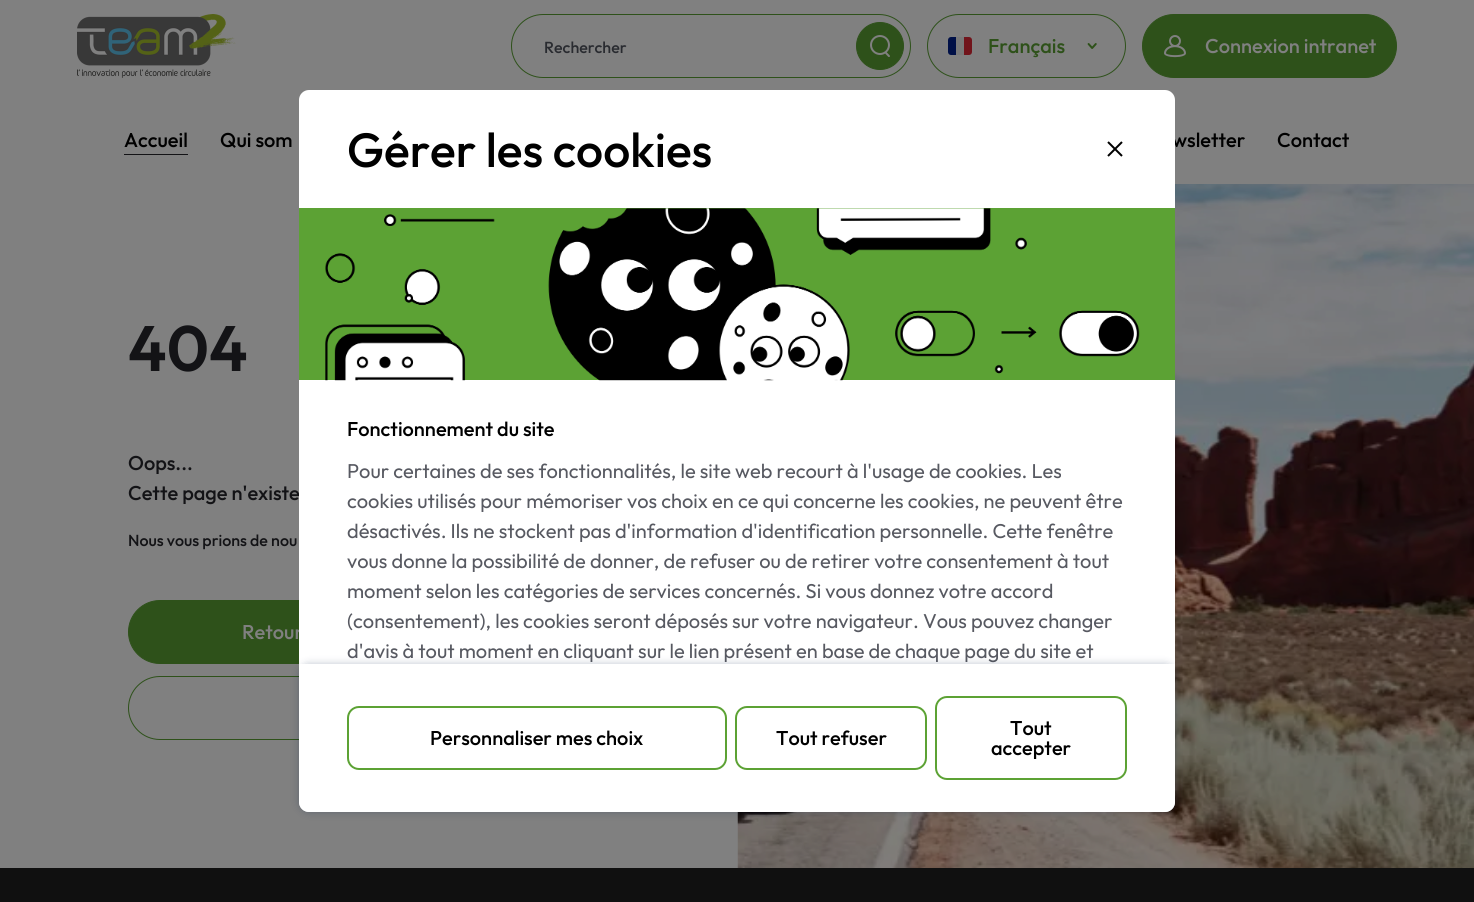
import math
import cairo

surface = cairo.ImageSurface(cairo.FORMAT_RGB24, 1474, 902)
ctx = cairo.Context(surface)
options = cairo.FontOptions()
options.set_hint_metrics(cairo.HINT_METRICS_OFF)
options.set_hint_style(cairo.HINT_STYLE_NONE)
ctx.set_font_options(options)
ctx.set_miter_limit(4)


def round_rect(x, y, w, h, r):
    ctx.new_sub_path()
    for i, (u, v) in enumerate([(x + w - r, y + h - r), (x + r, y + h - r), (x + r, y + r), (x + w - r, y + r)]):
        ctx.arc(u, v, r, i * math.pi / 2, (i + 1) * math.pi / 2)
    ctx.close_path()


def shadow(x, y, w, h, r, blur, alpha):
    ctx.push_group_with_content(cairo.CONTENT_ALPHA)
    ctx.set_operator(cairo.OPERATOR_SOURCE)
    for i in range(15, -16, -2):
        e = blur * i / 6
        if min(w, h) + 2 * e > 0:
            ctx.set_source_rgba(0, 0, 0, alpha * math.erfc((i - 1) / 8.5) / 2)
            round_rect(x - e, y - e, w + 2 * e, h + 2 * e, max(0, min(r + e + blur * .6, min(w, h) / 2 + e)))
            ctx.fill()
    ctx.mask(ctx.pop_group())


def picture(path, x, y, w, h):
    ctx.save()
    ctx.set_source_surface(cairo.ImageSurface.create_from_png(path), x, y)
    ctx.rectangle(x, y, w, h)
    ctx.fill()
    ctx.restore()


ctx.set_source_rgb(0.502, 0.502, 0.502)
ctx.paint()
picture("img1.png", 77, 14, 159, 64)
round_rect(511.5, 14.5, 399, 63, 31.5)
ctx.set_source_rgb(0.18, 0.318, 0.102)
ctx.set_line_width(1)
ctx.stroke()
ctx.select_font_face("Outfit Medium")
ctx.set_font_size(16)
ctx.set_source_rgb(0.161, 0.169, 0.188)
ctx.move_to(544, 53)
ctx.show_text("Rechercher")
ctx.set_source_rgb(0.18, 0.318, 0.102)
ctx.new_path()
ctx.arc(880, 46, 23.5, 0, 2 * math.pi)
ctx.fill_preserve()
ctx.stroke()
picture("img2.png", 870, 35, 20, 22)
round_rect(927.5, 14.5, 198, 63, 31.5)
ctx.stroke()
picture("img3.png", 948, 37, 24, 18)
ctx.set_font_size(20)
ctx.move_to(988, 53)
ctx.show_text("Français")
picture("img4.png", 1087, 43, 10, 6)
round_rect(1142.5, 14.5, 254, 63, 31.5)
ctx.fill_preserve()
ctx.stroke()
picture("img5.png", 1164, 35, 22, 23)
ctx.set_source_rgb(0.502, 0.502, 0.502)
ctx.move_to(1205, 53)
ctx.show_text("Connexion intranet")
ctx.set_source_rgb(0, 0, 0)
ctx.move_to(124, 147)
ctx.show_text("Accueil")
ctx.set_source_rgb(0.078, 0.078, 0.086)
ctx.rectangle(124, 154, 64, 1)
ctx.fill()
ctx.set_source_rgb(0, 0, 0)
ctx.move_to(220, 147)
ctx.show_text("Qui som")
ctx.move_to(1172, 147)
ctx.show_text("wsletter")
ctx.move_to(1277, 147)
ctx.show_text("Contact")
ctx.select_font_face("Outfit SemiBold")
ctx.set_font_size(64)
ctx.set_source_rgb(0.078, 0.078, 0.086)
ctx.move_to(128, 371)
ctx.show_text("404")
ctx.select_font_face("Outfit Medium")
ctx.set_font_size(20)
ctx.move_to(128, 470)
ctx.show_text("Oops...")
ctx.move_to(128, 500)
ctx.show_text("Cette page n'existe")
ctx.set_font_size(16)
ctx.move_to(128, 546)
ctx.show_text("Nous vous prions de nou")
ctx.set_source_rgb(0.18, 0.318, 0.102)
round_rect(128.5, 600.5, 484, 63, 31.5)
ctx.fill_preserve()
ctx.stroke()
ctx.set_font_size(20)
ctx.set_source_rgb(0.502, 0.502, 0.502)
ctx.move_to(242, 639)
ctx.show_text("Retour")
round_rect(128.5, 676.5, 484, 63, 31.5)
ctx.set_source_rgb(0.18, 0.318, 0.102)
ctx.stroke()
picture("img6.png", 737, 184, 737, 684)
ctx.set_source_rgb(0.063, 0.063, 0.063)
ctx.rectangle(0, 868, 1474, 34)
ctx.fill()
ctx.set_source_rgb(1, 1, 1)
round_rect(299, 90, 876, 722, 10)
ctx.fill()
ctx.set_font_size(48)
ctx.set_source_rgb(0, 0, 0)
ctx.move_to(347, 167)
ctx.show_text("Gérer les cookies")
ctx.new_path()
ctx.move_to(1122, 142)
ctx.line_to(1108, 156)
ctx.move_to(1122, 156)
ctx.line_to(1108, 142)
ctx.set_line_width(2)
ctx.stroke()
ctx.set_source_rgb(0.361, 0.635, 0.204)
ctx.rectangle(299, 208, 876, 172)
ctx.fill()
picture("img7.png", 325, 208, 815, 173)
ctx.set_font_size(20)
ctx.set_source_rgb(0, 0, 0)
ctx.move_to(347, 436)
ctx.show_text("Fonctionnement du site")
ctx.select_font_face("Outfit")
ctx.set_source_rgb(0.341, 0.349, 0.38)
ctx.move_to(347, 478)
ctx.show_text("Pour certaines de ses fonctionnalités, le site web recourt à l'usage de cookies. Les")
ctx.move_to(347, 508)
ctx.show_text("cookies utilisés pour mémoriser vos choix en ce qui concerne les cookies, ne peuvent être")
ctx.move_to(347, 538)
ctx.show_text("désactivés. Ils ne stockent pas d'information d'identification personnelle. Cette fenêtre")
ctx.move_to(347, 568)
ctx.show_text("vous donne la possibilité de donner, de refuser ou de retirer votre consentement à tout")
ctx.move_to(347, 598)
ctx.show_text("moment selon les catégories de services concernés. Si vous donnez votre accord")
ctx.move_to(347, 628)
ctx.show_text("(consentement), les cookies seront déposés sur votre navigateur. Vous pouvez changer")
ctx.move_to(347, 658)
ctx.show_text("d'avis à tout moment en cliquant sur le lien présent en base de chaque page du site et")
ctx.set_source_rgb(0.004, 0.098, 0.263)
shadow(299, 664, 876, 148, 10, 4, 0.25)
ctx.set_source_rgb(1, 1, 1)
ctx.new_path()
ctx.move_to(299, 664)
ctx.line_to(1175, 664)
ctx.line_to(1175, 802)
ctx.curve_to(1175, 807.5, 1170.5, 812, 1165, 812)
ctx.line_to(309, 812)
ctx.curve_to(303.5, 812, 299, 807.5, 299, 802)
ctx.close_path()
ctx.fill()
round_rect(348, 707, 378, 62, 11)
ctx.set_source_rgb(0.361, 0.635, 0.204)
ctx.stroke()
ctx.select_font_face("Outfit Medium")
ctx.set_source_rgb(0, 0, 0)
ctx.move_to(430, 745)
ctx.show_text("Personnaliser mes choix")
round_rect(736, 707, 190, 62, 11)
ctx.set_source_rgb(0.361, 0.635, 0.204)
ctx.stroke()
ctx.set_source_rgb(0, 0, 0)
ctx.move_to(776, 745)
ctx.show_text("Tout refuser")
round_rect(936, 697, 190, 82, 11)
ctx.set_source_rgb(0.361, 0.635, 0.204)
ctx.stroke()
ctx.set_source_rgb(0, 0, 0)
ctx.move_to(1010, 735)
ctx.show_text("Tout")
ctx.move_to(991, 755)
ctx.show_text("accepter")
surface.write_to_png("page.png")
